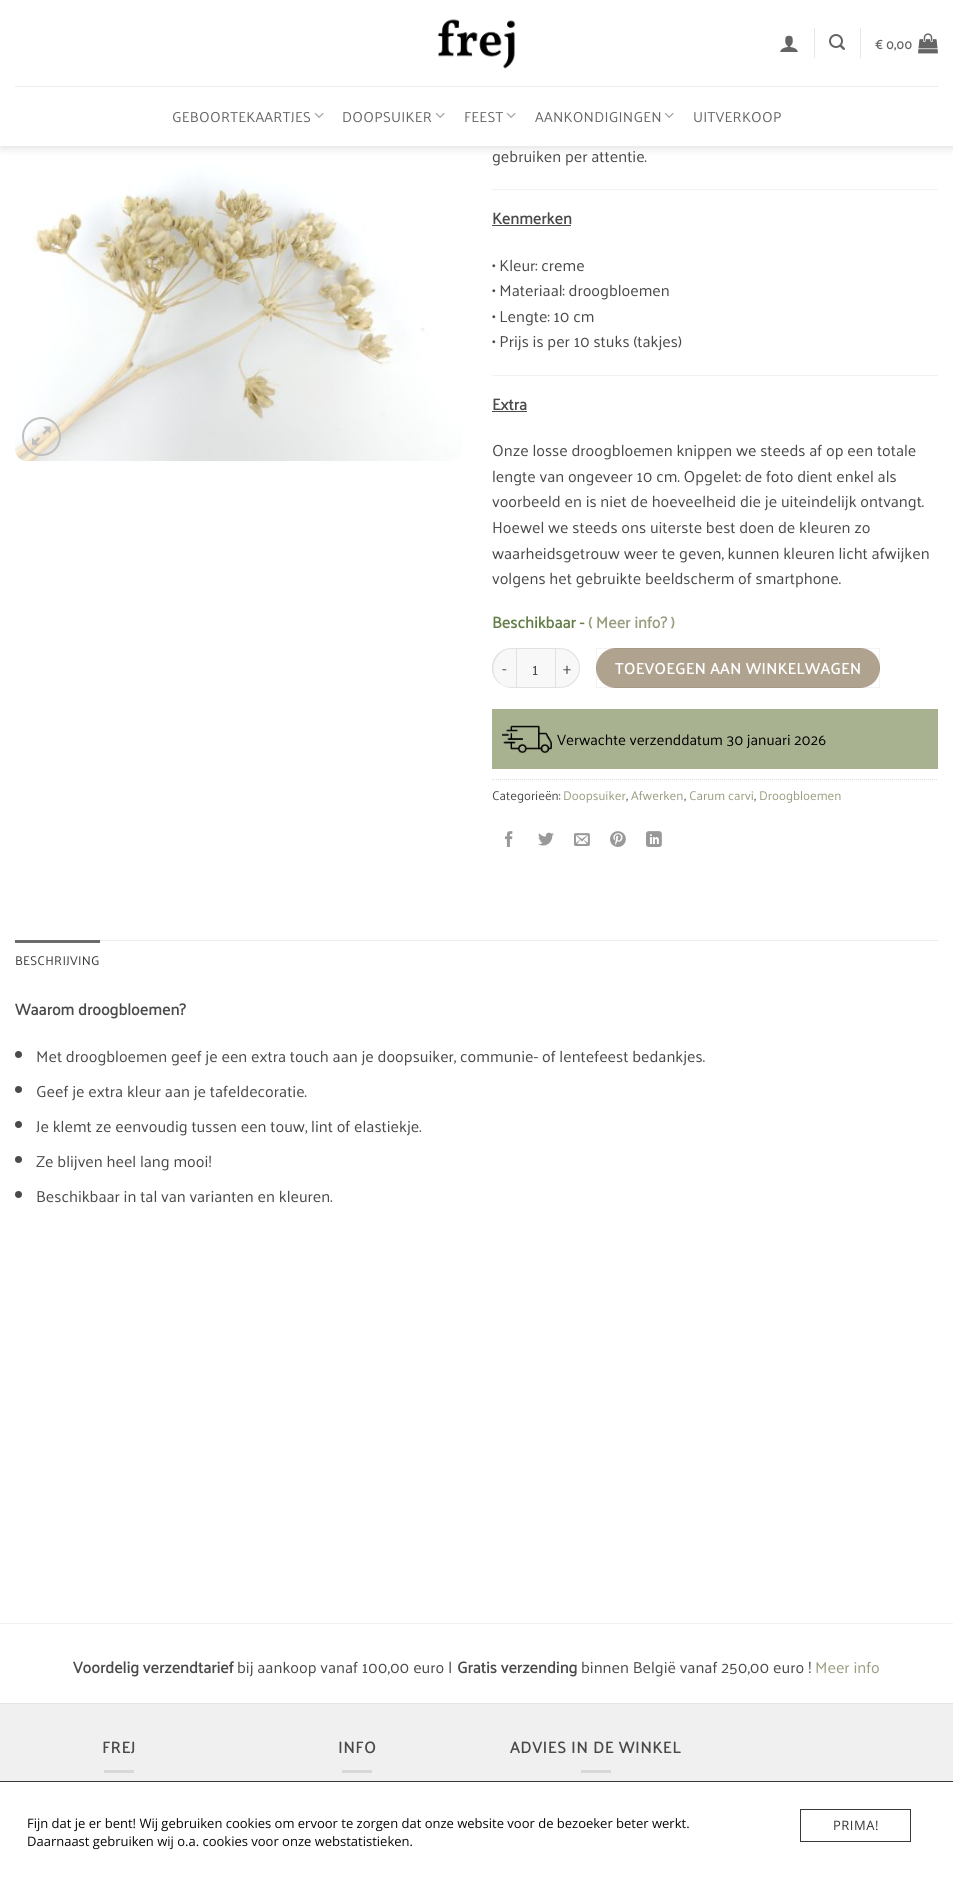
import math
import cairo

surface = cairo.ImageSurface(cairo.FORMAT_RGB24, 953, 1881)
ctx = cairo.Context(surface)
options = cairo.FontOptions()
options.set_hint_metrics(cairo.HINT_METRICS_OFF)
options.set_hint_style(cairo.HINT_STYLE_NONE)
ctx.set_font_options(options)
ctx.set_miter_limit(4)


def spaced_text(x, y, s, letter, word):
    ctx.move_to(x, y)
    for ch in s:
        ctx.show_text(ch)
        ctx.rel_move_to(letter + word * (ch == ' '), 0)


def round_rect(x, y, w, h, r):
    ctx.new_sub_path()
    for i, (u, v) in enumerate([(x + w - r, y + h - r), (x + r, y + h - r), (x + r, y + r), (x + w - r, y + r)]):
        ctx.arc(u, v, r, i * math.pi / 2, (i + 1) * math.pi / 2)
    ctx.close_path()


def shadow(x, y, w, h, r, blur, alpha):
    ctx.push_group_with_content(cairo.CONTENT_ALPHA)
    ctx.set_operator(cairo.OPERATOR_SOURCE)
    for i in range(15, -16, -2):
        e = blur * i / 6
        if min(w, h) + 2 * e > 0:
            ctx.set_source_rgba(0, 0, 0, alpha * math.erfc((i - 1) / 8.5) / 2)
            round_rect(x - e, y - e, w + 2 * e, h + 2 * e, max(0, min(r + e + blur * .6, min(w, h) / 2 + e)))
            ctx.fill()
    ctx.mask(ctx.pop_group())


def picture(path, x, y, w, h):
    ctx.save()
    ctx.set_source_surface(cairo.ImageSurface.create_from_png(path), x, y)
    ctx.rectangle(x, y, w, h)
    ctx.fill()
    ctx.restore()


ctx.set_source_rgb(1, 1, 1)
ctx.paint()
ctx.set_source_rgb(0, 0, 0)
shadow(1, 1, 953, 146, 0, 5, 0.15)
ctx.set_source_rgb(1, 1, 1)
ctx.rectangle(0, 0, 953, 146)
ctx.fill()
picture("img1.png", 437, 19, 79, 50)
picture("img2.png", 780, 35, 18, 17)
ctx.set_source_rgb(0.902, 0.902, 0.902)
ctx.rectangle(814, 28, 1, 30)
ctx.fill()
picture("img3.png", 829, 34, 16, 16)
ctx.rectangle(860, 28, 1, 30)
ctx.fill()
ctx.select_font_face("Palanquin", cairo.FONT_SLANT_NORMAL, cairo.FONT_WEIGHT_BOLD)
ctx.set_font_size(12.75)
ctx.set_source_rgb(0.396, 0.396, 0.396)
spaced_text(875, 49, "€ 0,00", 0.25, 0)
picture("img4.png", 918, 33, 20, 21)
ctx.set_source_rgb(0.929, 0.929, 0.929)
ctx.rectangle(15, 86, 923, 1)
ctx.fill()
ctx.select_font_face("Palanquin")
ctx.set_font_size(14.5)
ctx.set_source_rgb(0.396, 0.396, 0.396)
spaced_text(172, 122, "GEBOORTEKAARTJES", 0.25, 0)
picture("img5.png", 314, 112, 10, 6)
spaced_text(342, 122, "DOOPSUIKER", 0.25, 0)
picture("img5.png", 435, 112, 10, 6)
spaced_text(464, 122, "FEEST", 0.25, 0)
picture("img5.png", 506, 112, 10, 6)
spaced_text(535, 122, "AANKONDIGINGEN", 0.25, 0)
picture("img5.png", 664, 112, 10, 6)
spaced_text(693, 122, "UITVERKOOP", 0.25, 0)
picture("img6.png", 15, 166, 447, 295)
ctx.arc(41.5, 436.5, 18.5, 0, 2 * math.pi)
ctx.set_source_rgb(0.753, 0.753, 0.753)
ctx.stroke()
picture("img7.png", 32, 426, 19, 20)
ctx.set_font_size(16)
ctx.set_source_rgb(0.29, 0.29, 0.29)
ctx.move_to(492, 162)
ctx.show_text("gebruiken per attentie.")
ctx.set_source_rgb(0.949, 0.949, 0.949)
ctx.rectangle(492, 189, 446, 1)
ctx.fill()
ctx.select_font_face("Palanquin", cairo.FONT_SLANT_NORMAL, cairo.FONT_WEIGHT_BOLD)
ctx.set_source_rgb(0.29, 0.29, 0.29)
ctx.move_to(492, 224)
ctx.show_text("Kenmerken")
ctx.rectangle(492, 225, 79, 1)
ctx.fill()
ctx.select_font_face("Palanquin")
ctx.move_to(492, 271)
ctx.show_text("• Kleur: creme")
ctx.move_to(492, 296)
ctx.show_text("• Materiaal: droogbloemen")
ctx.move_to(492, 322)
ctx.show_text("• Lengte: 10 cm")
ctx.move_to(492, 347)
ctx.show_text("• Prijs is per 10 stuks (takjes)")
ctx.set_source_rgb(0.949, 0.949, 0.949)
ctx.rectangle(492, 375, 446, 1)
ctx.fill()
ctx.select_font_face("Palanquin", cairo.FONT_SLANT_NORMAL, cairo.FONT_WEIGHT_BOLD)
ctx.set_source_rgb(0.29, 0.29, 0.29)
ctx.move_to(492, 410)
ctx.show_text("Extra")
ctx.rectangle(492, 411, 35, 1)
ctx.fill()
ctx.select_font_face("Palanquin")
ctx.move_to(492, 456)
ctx.show_text("Onze losse droogbloemen knippen we steeds af op een totale")
ctx.move_to(492, 482)
ctx.show_text("lengte van ongeveer 10 cm. Opgelet: de foto dient enkel als")
ctx.move_to(492, 507)
ctx.show_text("voorbeeld en is niet de hoeveelheid die je uiteindelijk ontvangt.")
ctx.move_to(492, 533)
ctx.show_text("Hoewel we steeds ons uiterste best doen de kleuren zo")
ctx.move_to(492, 559)
ctx.show_text("waarheidsgetrouw weer te geven, kunnen kleuren licht afwijken")
ctx.move_to(492, 584)
ctx.show_text("volgens het gebruikte beeldscherm of smartphone.")
ctx.select_font_face("Palanquin", cairo.FONT_SLANT_NORMAL, cairo.FONT_WEIGHT_BOLD)
ctx.set_source_rgb(0.384, 0.49, 0.278)
ctx.move_to(492, 628)
ctx.show_text("Beschikbaar -")
ctx.set_source_rgb(0.6, 0.616, 0.502)
ctx.move_to(588, 628)
ctx.show_text("( Meer info? )")
ctx.set_source_rgb(0.969, 0.969, 0.969)
ctx.new_path()
ctx.move_to(512, 648)
ctx.line_to(516, 648)
ctx.line_to(516, 688)
ctx.line_to(512, 688)
ctx.curve_to(501, 688, 492, 679, 492, 668)
ctx.curve_to(492, 657, 501, 648, 512, 648)
ctx.close_path()
ctx.fill()
ctx.set_source_rgba(0, 0, 0, 0.09)
ctx.set_fill_rule(cairo.FILL_RULE_EVEN_ODD)
ctx.new_path()
ctx.move_to(512, 648)
ctx.line_to(516, 648)
ctx.line_to(516, 688)
ctx.curve_to(512, 688, 508, 688, 504, 686)
ctx.curve_to(484, 678, 490, 648, 512, 648)
ctx.close_path()
ctx.move_to(512, 649)
ctx.line_to(516, 649)
ctx.line_to(516, 687)
ctx.curve_to(512, 687, 508, 687, 505, 686)
ctx.curve_to(486, 678, 492, 649, 512, 649)
ctx.close_path()
ctx.fill()
ctx.select_font_face("Palanquin")
ctx.set_font_size(15.5)
ctx.set_source_rgb(0.29, 0.29, 0.29)
spaced_text(502, 674, "-", 0.5, 0)
ctx.set_source_rgb(0.969, 0.969, 0.969)
ctx.rectangle(516.5, 648.5, 39, 39)
ctx.fill_preserve()
ctx.set_source_rgb(0.882, 0.882, 0.882)
ctx.set_line_width(1)
ctx.stroke()
ctx.set_font_size(16)
ctx.set_source_rgb(0.29, 0.29, 0.29)
ctx.move_to(532, 675)
ctx.show_text("1")
ctx.set_source_rgb(0.969, 0.969, 0.969)
ctx.new_path()
ctx.move_to(556, 648)
ctx.line_to(560, 648)
ctx.curve_to(571, 648, 580, 657, 580, 668)
ctx.curve_to(580, 679, 571, 688, 560, 688)
ctx.line_to(556, 688)
ctx.close_path()
ctx.fill()
ctx.set_source_rgba(0, 0, 0, 0.09)
ctx.new_path()
ctx.move_to(556, 648)
ctx.line_to(560, 648)
ctx.curve_to(571, 648, 580, 657, 580, 668)
ctx.curve_to(580, 679, 571, 688, 560, 688)
ctx.line_to(556, 688)
ctx.close_path()
ctx.move_to(556, 649)
ctx.line_to(560, 649)
ctx.curve_to(570, 649, 579, 658, 579, 668)
ctx.curve_to(579, 678, 570, 687, 560, 687)
ctx.line_to(556, 687)
ctx.close_path()
ctx.fill()
ctx.set_font_size(15.5)
ctx.set_source_rgb(0.29, 0.29, 0.29)
spaced_text(563, 674, "+", 0.5, 0)
ctx.set_source_rgb(0.686, 0.635, 0.557)
round_rect(596, 648, 284, 40, 20)
ctx.fill()
ctx.rectangle(596.5, 648.5, 283, 39)
ctx.set_source_rgba(0, 0, 0, 0.05)
ctx.stroke()
ctx.select_font_face("Palanquin", cairo.FONT_SLANT_NORMAL, cairo.FONT_WEIGHT_BOLD)
ctx.set_source_rgb(1, 1, 1)
spaced_text(615, 674, "TOEVOEGEN AAN WINKELWAGEN", 0.5, 0)
ctx.set_source_rgb(0.663, 0.698, 0.565)
ctx.rectangle(492, 709, 446, 60)
ctx.fill()
picture("img8.png", 502, 725, 50, 28)
ctx.select_font_face("Palanquin")
ctx.set_font_size(15)
ctx.set_source_rgb(0, 0, 0)
ctx.move_to(557, 745)
ctx.show_text("Verwachte verzenddatum 30 januari 2026")
ctx.new_path()
ctx.move_to(492, 779.5)
ctx.line_to(938, 779.5)
ctx.set_source_rgb(0.867, 0.867, 0.867)
ctx.set_dash([1, 1])
ctx.stroke()
ctx.set_font_size(12.75)
ctx.set_source_rgb(0.29, 0.29, 0.29)
ctx.move_to(492, 800)
ctx.show_text("Categorieën:")
ctx.set_source_rgb(0.6, 0.616, 0.502)
ctx.move_to(563, 800)
ctx.show_text("Doopsuiker")
ctx.set_source_rgb(0.29, 0.29, 0.29)
ctx.move_to(626, 800)
ctx.show_text(",")
ctx.set_source_rgb(0.6, 0.616, 0.502)
ctx.move_to(631, 800)
ctx.show_text("Afwerken")
ctx.set_source_rgb(0.29, 0.29, 0.29)
ctx.move_to(684, 800)
ctx.show_text(",")
ctx.set_source_rgb(0.6, 0.616, 0.502)
ctx.move_to(689, 800)
ctx.show_text("Carum carvi")
ctx.set_source_rgb(0.29, 0.29, 0.29)
ctx.move_to(754, 800)
ctx.show_text(",")
ctx.set_source_rgb(0.6, 0.616, 0.502)
ctx.move_to(759, 800)
ctx.show_text("Droogbloemen")
picture("img9.png", 504, 831, 9, 16)
picture("img10.png", 538, 832, 16, 14)
picture("img11.png", 574, 833, 16, 13)
picture("img12.png", 610, 831, 16, 16)
picture("img13.png", 646, 831, 16, 16)
ctx.set_source_rgb(0.925, 0.925, 0.925)
ctx.rectangle(100, 940, 838, 1)
ctx.fill()
ctx.set_source_rgb(0.42, 0.42, 0.42)
ctx.rectangle(15, 940, 85, 3)
ctx.fill()
ctx.set_source_rgb(0.212, 0.212, 0.212)
spaced_text(15, 965, "BESCHRIJVING", 0.25, 0)
ctx.select_font_face("Palanquin", cairo.FONT_SLANT_NORMAL, cairo.FONT_WEIGHT_BOLD)
ctx.set_font_size(16)
ctx.set_source_rgb(0.29, 0.29, 0.29)
ctx.move_to(15, 1015)
ctx.show_text("Waarom droogbloemen?")
ctx.new_path()
ctx.arc(18.5, 1054.5, 3.5, 0, 2 * math.pi)
ctx.fill()
ctx.select_font_face("Palanquin")
ctx.move_to(36, 1062)
ctx.show_text("Met droogbloemen geef je een extra touch aan je doopsuiker, communie- of lentefeest bedankjes.")
ctx.new_path()
ctx.arc(18.5, 1089.5, 3.5, 0, 2 * math.pi)
ctx.fill()
ctx.move_to(36, 1097)
ctx.show_text("Geef je extra kleur aan je tafeldecoratie.")
ctx.new_path()
ctx.arc(18.5, 1124.5, 3.5, 0, 2 * math.pi)
ctx.fill()
ctx.move_to(36, 1132)
ctx.show_text("Je klemt ze eenvoudig tussen een touw, lint of elastiekje.")
ctx.new_path()
ctx.arc(18.5, 1159.5, 3.5, 0, 2 * math.pi)
ctx.fill()
ctx.move_to(36, 1167)
ctx.show_text("Ze blijven heel lang mooi!")
ctx.new_path()
ctx.arc(18.5, 1194.5, 3.5, 0, 2 * math.pi)
ctx.fill()
ctx.move_to(36, 1202)
ctx.show_text("Beschikbaar in tal van varianten en kleuren.")
ctx.set_source_rgb(0.949, 0.949, 0.949)
ctx.rectangle(0, 1623, 953, 1)
ctx.fill()
ctx.select_font_face("Palanquin", cairo.FONT_SLANT_NORMAL, cairo.FONT_WEIGHT_BOLD)
ctx.set_source_rgb(0.29, 0.29, 0.29)
ctx.move_to(73, 1673)
ctx.show_text("Voordelig verzendtarief")
ctx.select_font_face("Palanquin")
ctx.move_to(237, 1673)
ctx.show_text("bij aankoop vanaf 100,00 euro |")
ctx.select_font_face("Palanquin", cairo.FONT_SLANT_NORMAL, cairo.FONT_WEIGHT_BOLD)
ctx.move_to(457, 1673)
ctx.show_text("Gratis verzending")
ctx.select_font_face("Palanquin")
ctx.move_to(581, 1673)
ctx.show_text("binnen België vanaf 250,00 euro !")
ctx.set_source_rgb(0.6, 0.616, 0.502)
ctx.move_to(815, 1673)
ctx.show_text("Meer info")
ctx.set_source_rgb(0.945, 0.941, 0.945)
ctx.rectangle(0, 1704, 953, 77)
ctx.fill()
ctx.set_source_rgb(0.898, 0.894, 0.898)
ctx.rectangle(0, 1703, 953, 1)
ctx.fill()
ctx.select_font_face("Palanquin", cairo.FONT_SLANT_NORMAL, cairo.FONT_WEIGHT_BOLD)
ctx.set_source_rgb(0.29, 0.29, 0.29)
spaced_text(102, 1753, "FREJ", 0.75, 0)
ctx.set_source_rgb(0.851, 0.847, 0.851)
ctx.rectangle(104, 1770, 30, 3)
ctx.fill()
ctx.set_source_rgb(0.29, 0.29, 0.29)
spaced_text(338, 1753, "INFO", 0.75, 0)
ctx.set_source_rgb(0.851, 0.847, 0.851)
ctx.rectangle(342, 1770, 30, 3)
ctx.fill()
ctx.set_source_rgb(0.29, 0.29, 0.29)
spaced_text(510, 1753, "ADVIES IN DE WINKEL", 0.75, 0)
ctx.set_source_rgb(0.851, 0.847, 0.851)
ctx.rectangle(581, 1770, 30, 3)
ctx.fill()
ctx.set_source_rgb(0.224, 0.224, 0.224)
ctx.rectangle(0, 1781, 953, 1)
ctx.fill()
ctx.select_font_face("Open Sans")
ctx.set_font_size(13)
ctx.set_source_rgb(0.031, 0.031, 0.031)
ctx.move_to(27, 1828)
ctx.show_text("Fijn dat je er bent! Wij gebruiken cookies om ervoor te zorgen dat onze website voor de bezoeker beter werkt.")
ctx.move_to(27, 1846)
ctx.show_text("Daarnaast gebruiken wij o.a. cookies voor onze webstatistieken.")
ctx.rectangle(800.5, 1809.5, 110, 32)
ctx.set_source_rgb(0.224, 0.224, 0.224)
ctx.set_dash([])
ctx.stroke()
ctx.set_source_rgb(0.212, 0.212, 0.212)
spaced_text(833, 1830, "PRIMA!", 0.5, 0)
surface.write_to_png("page.png")
